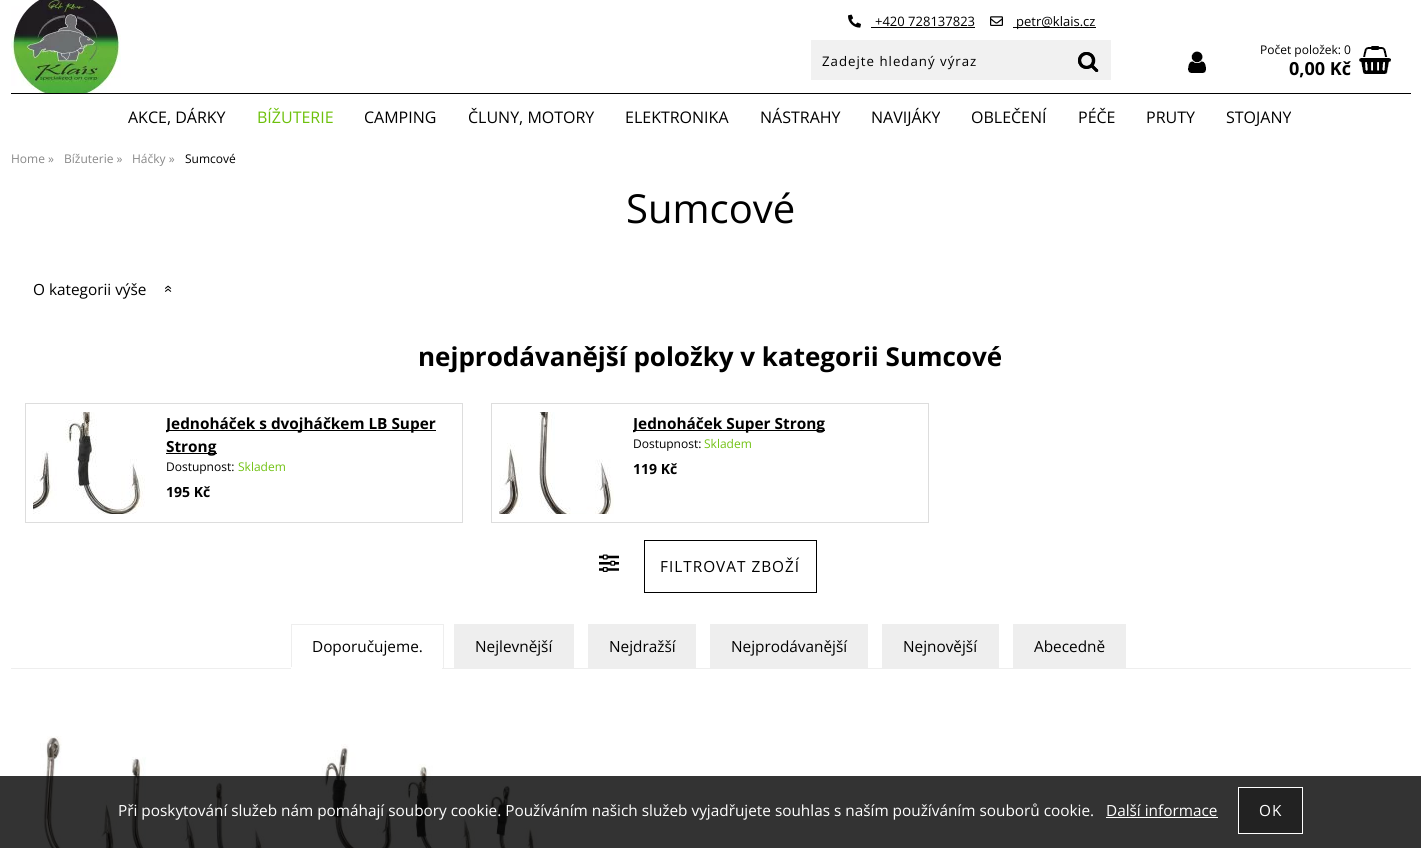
import math
import cairo

surface = cairo.ImageSurface(cairo.FORMAT_RGB24, 1421, 848)
ctx = cairo.Context(surface)
options = cairo.FontOptions()
options.set_hint_metrics(cairo.HINT_METRICS_OFF)
options.set_hint_style(cairo.HINT_STYLE_NONE)
ctx.set_font_options(options)
ctx.set_miter_limit(4)


def spaced_text(x, y, s, letter, word):
    ctx.move_to(x, y)
    for ch in s:
        ctx.show_text(ch)
        ctx.rel_move_to(letter + word * (ch == ' '), 0)


def picture(path, x, y, w, h):
    ctx.save()
    ctx.set_source_surface(cairo.ImageSurface.create_from_png(path), x, y)
    ctx.rectangle(x, y, w, h)
    ctx.fill()
    ctx.restore()


ctx.set_source_rgb(1, 1, 1)
ctx.paint()
picture("img1.png", 11, 0, 110, 93)
picture("img2.png", 848, 14, 13, 14)
ctx.select_font_face("Open Sans")
ctx.set_font_size(13)
ctx.set_source_rgb(0, 0, 0)
ctx.move_to(875, 26)
ctx.show_text("+420 728137823")
ctx.rectangle(871, 27, 104, 1)
ctx.fill()
picture("img3.png", 990, 16, 13, 10)
ctx.rectangle(1013, 27, 83, 1)
ctx.fill()
ctx.move_to(1016, 26)
ctx.show_text("petr@klais.cz")
ctx.set_source_rgb(0.945, 0.945, 0.945)
ctx.rectangle(811, 40, 300, 40)
ctx.fill()
ctx.set_font_size(13.25)
ctx.set_source_rgb(0, 0, 0)
spaced_text(822, 66, "Zadejte hledaný výraz", 1, 0)
picture("img4.png", 1078, 52, 21, 20)
picture("img5.png", 1188, 51, 18, 22)
ctx.set_font_size(12)
ctx.move_to(1260, 54)
ctx.show_text("Počet položek: 0")
ctx.select_font_face("Open Sans", cairo.FONT_SLANT_NORMAL, cairo.FONT_WEIGHT_BOLD)
ctx.set_font_size(18)
ctx.move_to(1289, 75)
ctx.show_text("0,00 Kč")
picture("img6.png", 1359, 46, 32, 28)
ctx.rectangle(11, 93, 1400, 1)
ctx.fill()
ctx.select_font_face("Open Sans")
ctx.set_font_size(16)
ctx.move_to(128, 123)
ctx.show_text("AKCE, DÁRKY")
ctx.set_source_rgb(0.427, 0.753, 0.047)
ctx.move_to(257, 123)
ctx.show_text("BÍŽUTERIE")
ctx.set_source_rgb(0, 0, 0)
ctx.move_to(364, 123)
ctx.show_text("CAMPING")
ctx.move_to(468, 123)
ctx.show_text("ČLUNY, MOTORY")
ctx.move_to(625, 123)
ctx.show_text("ELEKTRONIKA")
ctx.move_to(760, 123)
ctx.show_text("NÁSTRAHY")
ctx.move_to(871, 123)
ctx.show_text("NAVIJÁKY")
ctx.move_to(971, 123)
ctx.show_text("OBLEČENÍ")
ctx.move_to(1078, 123)
ctx.show_text("PÉČE")
ctx.move_to(1146, 123)
ctx.show_text("PRUTY")
ctx.move_to(1226, 123)
ctx.show_text("STOJANY")
ctx.set_font_size(12)
ctx.set_source_rgb(0.533, 0.533, 0.533)
ctx.move_to(11, 163)
ctx.show_text("Home »")
ctx.move_to(64, 163)
ctx.show_text("Bížuterie »")
ctx.move_to(132, 163)
ctx.show_text("Háčky »")
ctx.set_source_rgb(0, 0, 0)
ctx.move_to(185, 163)
ctx.show_text("Sumcové")
ctx.set_font_size(40)
ctx.move_to(626, 223)
ctx.show_text("Sumcové")
ctx.set_font_size(15.35)
ctx.move_to(33, 295)
ctx.show_text("O kategorii výše")
ctx.save()
ctx.translate(164, 285)
ctx.rotate(90 * math.pi / 180)
ctx.move_to(0, 0)
ctx.show_text("«")
ctx.restore()
ctx.select_font_face("Open Sans", cairo.FONT_SLANT_NORMAL, cairo.FONT_WEIGHT_BOLD)
ctx.set_font_size(26)
ctx.move_to(418, 366)
ctx.show_text("nejprodávanější položky v kategorii Sumcové")
ctx.rectangle(25.5, 403.5, 437, 119)
ctx.set_source_rgb(0.867, 0.867, 0.867)
ctx.set_line_width(1)
ctx.stroke()
picture("img7.png", 33, 412, 112, 102)
ctx.set_source_rgb(0, 0, 0)
ctx.rectangle(166, 430, 270, 1)
ctx.fill()
ctx.save()
ctx.rectangle(166, 412, 288, 46)
ctx.clip()
ctx.set_font_size(15.35)
ctx.move_to(166, 429)
ctx.show_text("Jednoháček s dvojháčkem LB Super")
ctx.restore()
ctx.rectangle(166, 453, 51, 1)
ctx.fill()
ctx.set_font_size(15.35)
ctx.move_to(166, 452)
ctx.show_text("Strong")
ctx.select_font_face("Open Sans")
ctx.set_font_size(12)
ctx.move_to(166, 471)
ctx.show_text("Dostupnost:")
ctx.set_source_rgb(0.447, 0.761, 0.082)
ctx.move_to(238, 471)
ctx.show_text("Skladem")
ctx.select_font_face("Open Sans", cairo.FONT_SLANT_NORMAL, cairo.FONT_WEIGHT_BOLD)
ctx.set_font_size(14)
ctx.set_source_rgb(0, 0, 0)
ctx.move_to(166, 497)
ctx.show_text("195 Kč")
ctx.rectangle(491.5, 403.5, 437, 119)
ctx.set_source_rgb(0.867, 0.867, 0.867)
ctx.stroke()
picture("img8.png", 499, 412, 115, 102)
ctx.set_source_rgb(0, 0, 0)
ctx.rectangle(633, 430, 192, 1)
ctx.fill()
ctx.save()
ctx.rectangle(633, 412, 287, 23)
ctx.clip()
ctx.set_font_size(15.35)
ctx.move_to(633, 429)
ctx.show_text("Jednoháček Super Strong")
ctx.restore()
ctx.select_font_face("Open Sans")
ctx.set_font_size(12)
ctx.move_to(633, 448)
ctx.show_text("Dostupnost:")
ctx.set_source_rgb(0.447, 0.761, 0.082)
ctx.move_to(704, 448)
ctx.show_text("Skladem")
ctx.select_font_face("Open Sans", cairo.FONT_SLANT_NORMAL, cairo.FONT_WEIGHT_BOLD)
ctx.set_font_size(14)
ctx.set_source_rgb(0, 0, 0)
ctx.move_to(633, 474)
ctx.show_text("119 Kč")
picture("img9.png", 599, 554, 20, 18)
ctx.rectangle(644.5, 540.5, 172, 52)
ctx.stroke()
ctx.select_font_face("Open Sans")
ctx.set_font_size(15.35)
spaced_text(660, 572, "FILTROVAT ZBOŽÍ", 1, 0)
ctx.set_source_rgb(0.933, 0.933, 0.933)
ctx.rectangle(11, 668, 1400, 1)
ctx.fill()
ctx.rectangle(291, 624, 153, 1)
ctx.fill()
ctx.rectangle(443, 624, 1, 44)
ctx.fill()
ctx.rectangle(291, 624, 1, 44)
ctx.fill()
ctx.set_source_rgb(0, 0, 0)
ctx.move_to(312, 652)
ctx.show_text("Doporučujeme.")
ctx.set_source_rgb(1, 1, 1)
ctx.rectangle(291, 667, 151, 2)
ctx.fill()
ctx.set_source_rgb(0.933, 0.933, 0.933)
ctx.rectangle(454, 624, 120, 44)
ctx.fill()
ctx.set_source_rgb(0, 0, 0)
ctx.move_to(475, 652)
ctx.show_text("Nejlevnější")
ctx.set_source_rgb(0.933, 0.933, 0.933)
ctx.rectangle(588, 624, 108, 44)
ctx.fill()
ctx.set_source_rgb(0, 0, 0)
ctx.move_to(609, 652)
ctx.show_text("Nejdražší")
ctx.set_source_rgb(0.933, 0.933, 0.933)
ctx.rectangle(710, 624, 158, 44)
ctx.fill()
ctx.set_source_rgb(0, 0, 0)
ctx.move_to(731, 652)
ctx.show_text("Nejprodávanější")
ctx.set_source_rgb(0.933, 0.933, 0.933)
ctx.rectangle(882, 624, 117, 44)
ctx.fill()
ctx.set_source_rgb(0, 0, 0)
ctx.move_to(903, 652)
ctx.show_text("Nejnovější")
ctx.set_source_rgb(0.933, 0.933, 0.933)
ctx.rectangle(1013, 624, 113, 44)
ctx.fill()
ctx.set_source_rgb(0, 0, 0)
ctx.move_to(1034, 652)
ctx.show_text("Abecedně")
picture("img10.png", 40, 736, 225, 112)
picture("img11.png", 321, 744, 216, 104)
ctx.set_source_rgba(0, 0, 0, 0.8)
ctx.rectangle(0, 776, 1421, 72)
ctx.fill()
ctx.set_source_rgb(1, 1, 1)
ctx.move_to(118, 816)
ctx.show_text("Při poskytování služeb nám pomáhají soubory cookie. Používáním našich služeb vyjadřujete souhlas s naším používáním souborů cookie.")
ctx.move_to(1106, 816)
ctx.show_text("Další informace")
ctx.rectangle(1106, 817, 112, 1)
ctx.fill()
ctx.set_source_rgb(0.133, 0.133, 0.133)
ctx.rectangle(1238.5, 787.5, 64, 46)
ctx.fill_preserve()
ctx.set_source_rgb(1, 1, 1)
ctx.stroke()
spaced_text(1259, 816, "OK", 1, 0)
surface.write_to_png("page.png")
